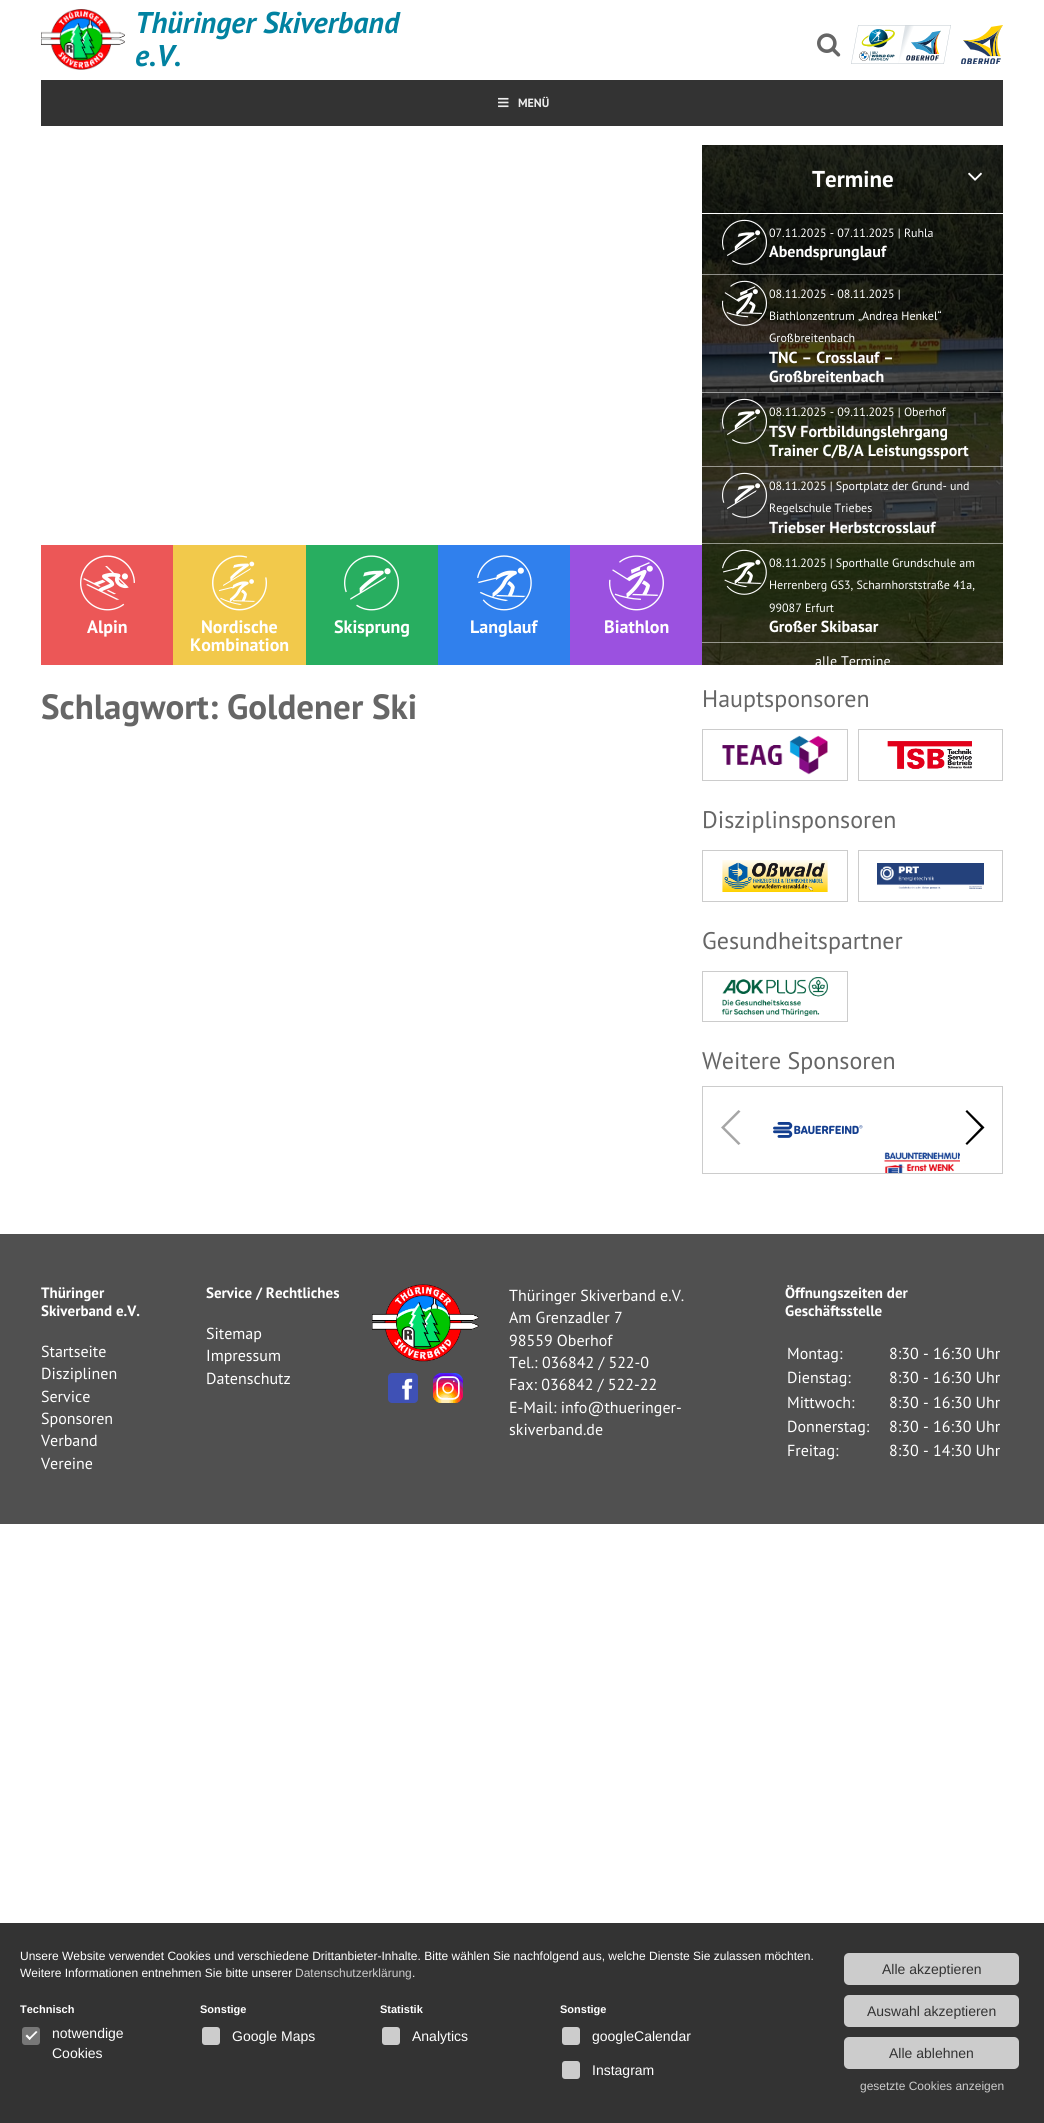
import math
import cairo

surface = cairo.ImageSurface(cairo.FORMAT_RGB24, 1044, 2123)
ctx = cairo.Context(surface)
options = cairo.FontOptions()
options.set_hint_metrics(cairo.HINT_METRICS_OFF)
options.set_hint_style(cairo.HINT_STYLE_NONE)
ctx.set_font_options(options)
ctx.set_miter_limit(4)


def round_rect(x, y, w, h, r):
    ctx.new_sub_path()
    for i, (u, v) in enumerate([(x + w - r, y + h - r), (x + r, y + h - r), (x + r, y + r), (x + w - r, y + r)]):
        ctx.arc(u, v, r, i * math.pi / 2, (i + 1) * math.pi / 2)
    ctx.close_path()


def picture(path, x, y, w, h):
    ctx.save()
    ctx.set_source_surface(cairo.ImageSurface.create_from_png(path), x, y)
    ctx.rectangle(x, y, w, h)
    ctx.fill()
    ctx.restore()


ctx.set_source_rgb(1, 1, 1)
ctx.paint()
picture("img1.png", 41, 9, 84, 61)
ctx.select_font_face("PT Sans", cairo.FONT_SLANT_ITALIC, cairo.FONT_WEIGHT_BOLD)
ctx.set_font_size(30)
ctx.set_source_rgb(0.004, 0.51, 0.631)
ctx.move_to(135, 33)
ctx.show_text("Thüringer Skiverband")
ctx.move_to(135, 66)
ctx.show_text("e.V.")
ctx.set_source_rgb(0.2, 0.2, 0.2)
ctx.rectangle(41, 80, 962, 46)
ctx.fill()
picture("img2.png", 498, 97, 11, 11)
ctx.select_font_face("PT Sans", cairo.FONT_SLANT_NORMAL, cairo.FONT_WEIGHT_BOLD)
ctx.set_font_size(12)
ctx.set_source_rgb(0.933, 0.933, 0.933)
ctx.move_to(518, 107)
ctx.show_text("MENÜ")
picture("img3.png", 817, 33, 24, 24)
picture("img4.png", 851, 25, 100, 39)
picture("img5.png", 961, 25, 42, 39)
ctx.set_source_rgb(0.922, 0.341, 0.341)
ctx.rectangle(41, 545, 132, 120)
ctx.fill()
picture("img6.png", 80, 555, 55, 56)
ctx.set_font_size(18)
ctx.set_source_rgb(1, 1, 1)
ctx.move_to(87, 633)
ctx.show_text("Alpin")
ctx.set_source_rgb(0.949, 0.788, 0.294)
ctx.rectangle(173, 545, 133, 120)
ctx.fill()
picture("img7.png", 212, 555, 55, 56)
ctx.set_source_rgb(1, 1, 1)
ctx.move_to(201, 633)
ctx.show_text("Nordische")
ctx.move_to(190, 651)
ctx.show_text("Kombination")
ctx.set_source_rgb(0.157, 0.682, 0.376)
ctx.rectangle(306, 545, 132, 120)
ctx.fill()
picture("img8.png", 344, 555, 55, 56)
ctx.set_source_rgb(1, 1, 1)
ctx.move_to(334, 633)
ctx.show_text("Skisprung")
ctx.set_source_rgb(0.188, 0.502, 0.929)
ctx.rectangle(438, 545, 132, 120)
ctx.fill()
picture("img9.png", 477, 555, 55, 56)
ctx.set_source_rgb(1, 1, 1)
ctx.move_to(470, 633)
ctx.show_text("Langlauf")
ctx.set_source_rgb(0.608, 0.318, 0.878)
ctx.rectangle(570, 545, 132, 120)
ctx.fill()
picture("img10.png", 609, 555, 55, 56)
ctx.set_source_rgb(1, 1, 1)
ctx.move_to(604, 633)
ctx.show_text("Biathlon")
picture("img11.png", 702, 145, 301, 520)
ctx.rectangle(702, 213, 301, 1)
ctx.fill()
ctx.set_font_size(23)
ctx.move_to(812, 187)
ctx.show_text("Termine")
picture("img12.png", 968, 172, 14, 9)
ctx.set_source_rgba(1, 1, 1, 0.5)
ctx.rectangle(702, 274, 301, 1)
ctx.fill()
picture("img13.png", 722, 219, 45, 46)
ctx.select_font_face("PT Sans")
ctx.set_font_size(12)
ctx.set_source_rgb(1, 1, 1)
ctx.move_to(769, 237)
ctx.show_text("07.11.2025 - 07.11.2025 | Ruhla")
ctx.select_font_face("PT Sans", cairo.FONT_SLANT_NORMAL, cairo.FONT_WEIGHT_BOLD)
ctx.set_font_size(16)
ctx.move_to(769, 257)
ctx.show_text("Abendsprunglauf")
ctx.set_source_rgba(1, 1, 1, 0.5)
ctx.rectangle(702, 392, 301, 1)
ctx.fill()
picture("img14.png", 722, 280, 45, 46)
ctx.select_font_face("PT Sans")
ctx.set_font_size(12)
ctx.set_source_rgb(1, 1, 1)
ctx.move_to(769, 298)
ctx.show_text("08.11.2025 - 08.11.2025 |")
ctx.move_to(769, 320)
ctx.show_text("Biathlonzentrum „Andrea Henkel“")
ctx.move_to(769, 342)
ctx.show_text("Großbreitenbach")
ctx.select_font_face("PT Sans", cairo.FONT_SLANT_NORMAL, cairo.FONT_WEIGHT_BOLD)
ctx.set_font_size(16)
ctx.move_to(769, 363)
ctx.show_text("TNC – Crosslauf –")
ctx.move_to(769, 382)
ctx.show_text("Großbreitenbach")
ctx.set_source_rgba(1, 1, 1, 0.5)
ctx.rectangle(702, 466, 301, 1)
ctx.fill()
picture("img15.png", 722, 398, 45, 46)
ctx.select_font_face("PT Sans")
ctx.set_font_size(12)
ctx.set_source_rgb(1, 1, 1)
ctx.move_to(769, 416)
ctx.show_text("08.11.2025 - 09.11.2025 | Oberhof")
ctx.select_font_face("PT Sans", cairo.FONT_SLANT_NORMAL, cairo.FONT_WEIGHT_BOLD)
ctx.set_font_size(16)
ctx.move_to(769, 437)
ctx.show_text("TSV Fortbildungslehrgang")
ctx.move_to(769, 456)
ctx.show_text("Trainer C/B/A Leistungssport")
ctx.set_source_rgba(1, 1, 1, 0.5)
ctx.rectangle(702, 543, 301, 1)
ctx.fill()
picture("img16.png", 722, 472, 45, 46)
ctx.select_font_face("PT Sans")
ctx.set_font_size(12)
ctx.set_source_rgb(1, 1, 1)
ctx.move_to(769, 490)
ctx.show_text("08.11.2025 | Sportplatz der Grund- und")
ctx.move_to(769, 512)
ctx.show_text("Regelschule Triebes")
ctx.select_font_face("PT Sans", cairo.FONT_SLANT_NORMAL, cairo.FONT_WEIGHT_BOLD)
ctx.set_font_size(16)
ctx.move_to(769, 533)
ctx.show_text("Triebser Herbstcrosslauf")
ctx.set_source_rgba(1, 1, 1, 0.5)
ctx.rectangle(702, 642, 301, 1)
ctx.fill()
picture("img17.png", 722, 549, 45, 46)
ctx.select_font_face("PT Sans")
ctx.set_font_size(12)
ctx.set_source_rgb(1, 1, 1)
ctx.move_to(769, 567)
ctx.show_text("08.11.2025 | Sporthalle Grundschule am")
ctx.move_to(769, 589)
ctx.show_text("Herrenberg GS3, Scharnhorststraße 41a,")
ctx.move_to(769, 612)
ctx.show_text("99087 Erfurt")
ctx.select_font_face("PT Sans", cairo.FONT_SLANT_NORMAL, cairo.FONT_WEIGHT_BOLD)
ctx.set_font_size(16)
ctx.move_to(769, 632)
ctx.show_text("Großer Skibasar")
ctx.save()
ctx.rectangle(702, 145, 301, 520)
ctx.clip()
ctx.select_font_face("PT Sans")
ctx.set_font_size(14)
ctx.move_to(815, 666)
ctx.show_text("alle Termine")
ctx.restore()
ctx.set_font_size(35)
ctx.set_source_rgb(0.4, 0.4, 0.4)
ctx.move_to(41, 719)
ctx.show_text("Schlagwort: Goldener Ski")
ctx.select_font_face("PT Sans")
ctx.set_font_size(24)
ctx.move_to(702, 707)
ctx.show_text("Hauptsponsoren")
ctx.rectangle(702.5, 729.5, 145, 51)
ctx.set_source_rgb(0.8, 0.8, 0.8)
ctx.set_line_width(1)
ctx.stroke()
picture("img18.png", 722, 735, 106, 40)
ctx.rectangle(858.5, 729.5, 144, 51)
ctx.stroke()
picture("img19.png", 887, 741, 85, 28)
ctx.set_source_rgb(0.4, 0.4, 0.4)
ctx.move_to(702, 828)
ctx.show_text("Disziplinsponsoren")
ctx.rectangle(702.5, 850.5, 145, 51)
ctx.set_source_rgb(0.8, 0.8, 0.8)
ctx.stroke()
picture("img20.png", 722, 860, 106, 32)
ctx.rectangle(858.5, 850.5, 144, 51)
ctx.stroke()
picture("img21.png", 877, 863, 107, 26)
ctx.set_source_rgb(0.4, 0.4, 0.4)
ctx.move_to(702, 949)
ctx.show_text("Gesundheitspartner")
ctx.rectangle(702.5, 971.5, 145, 50)
ctx.set_source_rgb(0.8, 0.8, 0.8)
ctx.stroke()
picture("img22.png", 722, 977, 106, 39)
ctx.set_source_rgb(0.4, 0.4, 0.4)
ctx.move_to(702, 1069)
ctx.show_text("Weitere Sponsoren")
ctx.rectangle(702.5, 1086.5, 300, 87)
ctx.set_source_rgb(0.8, 0.8, 0.8)
ctx.stroke()
ctx.set_source_rgb(0.651, 0.651, 0.651)
ctx.new_path()
ctx.move_to(721, 1127.5)
ctx.line_to(738.5, 1110)
ctx.line_to(740.5, 1111.5)
ctx.line_to(724.5, 1127.5)
ctx.line_to(740.5, 1143.5)
ctx.line_to(738.5, 1145)
ctx.close_path()
ctx.fill()
picture("img24.png", 883, 1152, 89, 21)
ctx.set_source_rgb(1, 1, 1)
ctx.rectangle(960, 1152, 12, 11)
ctx.fill()
ctx.set_source_rgb(0, 0, 0)
ctx.new_path()
ctx.move_to(984.5, 1127.5)
ctx.line_to(967, 1145)
ctx.line_to(965.5, 1143.5)
ctx.line_to(981, 1127.5)
ctx.line_to(965.5, 1111.5)
ctx.line_to(967, 1110)
ctx.close_path()
ctx.fill()
picture("img23.png", 773, 1122, 90, 16)
ctx.set_source_rgb(0.314, 0.314, 0.314)
ctx.rectangle(0, 1234, 1044, 290)
ctx.fill()
ctx.select_font_face("PT Sans", cairo.FONT_SLANT_NORMAL, cairo.FONT_WEIGHT_BOLD)
ctx.set_font_size(15)
ctx.set_source_rgb(1, 1, 1)
ctx.move_to(41, 1298)
ctx.show_text("Thüringer")
ctx.move_to(41, 1316)
ctx.show_text("Skiverband e.V.")
ctx.select_font_face("PT Sans")
ctx.set_font_size(16)
ctx.move_to(41, 1357)
ctx.show_text("Startseite")
ctx.move_to(41, 1379)
ctx.show_text("Disziplinen")
ctx.move_to(41, 1402)
ctx.show_text("Service")
ctx.move_to(41, 1424)
ctx.show_text("Sponsoren")
ctx.move_to(41, 1446)
ctx.show_text("Verband")
ctx.move_to(41, 1469)
ctx.show_text("Vereine")
ctx.select_font_face("PT Sans", cairo.FONT_SLANT_NORMAL, cairo.FONT_WEIGHT_BOLD)
ctx.set_font_size(15)
ctx.move_to(206, 1298)
ctx.show_text("Service / Rechtliches")
ctx.select_font_face("PT Sans")
ctx.set_font_size(16)
ctx.move_to(206, 1339)
ctx.show_text("Sitemap")
ctx.move_to(206, 1361)
ctx.show_text("Impressum")
ctx.move_to(206, 1384)
ctx.show_text("Datenschutz")
picture("img25.png", 372, 1284, 107, 78)
picture("img26.png", 388, 1373, 30, 30)
picture("img27.png", 433, 1373, 30, 30)
ctx.move_to(509, 1301)
ctx.show_text("Thüringer Skiverband e.V.")
ctx.move_to(509, 1323)
ctx.show_text("Am Grenzadler 7")
ctx.move_to(509, 1346)
ctx.show_text("98559 Oberhof")
ctx.move_to(509, 1368)
ctx.show_text("Tel.: 036842 / 522-0")
ctx.move_to(509, 1390)
ctx.show_text("Fax: 036842 / 522-22")
ctx.move_to(509, 1413)
ctx.show_text("E-Mail: info@thueringer-")
ctx.move_to(509, 1435)
ctx.show_text("skiverband.de")
ctx.select_font_face("PT Sans", cairo.FONT_SLANT_NORMAL, cairo.FONT_WEIGHT_BOLD)
ctx.set_font_size(15)
ctx.move_to(785, 1298)
ctx.show_text("Öffnungszeiten der")
ctx.move_to(785, 1316)
ctx.show_text("Geschäftsstelle")
ctx.select_font_face("PT Sans")
ctx.set_font_size(16)
ctx.move_to(787, 1359)
ctx.show_text("Montag:")
ctx.move_to(889, 1359)
ctx.show_text("8:30 - 16:30 Uhr")
ctx.move_to(787, 1383)
ctx.show_text("Dienstag:")
ctx.move_to(889, 1383)
ctx.show_text("8:30 - 16:30 Uhr")
ctx.move_to(787, 1408)
ctx.show_text("Mittwoch:")
ctx.move_to(889, 1408)
ctx.show_text("8:30 - 16:30 Uhr")
ctx.move_to(787, 1432)
ctx.show_text("Donnerstag:")
ctx.move_to(889, 1432)
ctx.show_text("8:30 - 16:30 Uhr")
ctx.move_to(787, 1456)
ctx.show_text("Freitag:")
ctx.move_to(889, 1456)
ctx.show_text("8:30 - 14:30 Uhr")
ctx.set_source_rgb(0.2, 0.2, 0.2)
ctx.rectangle(0, 1923, 1044, 200)
ctx.fill()
ctx.select_font_face("Liberation Sans")
ctx.set_font_size(12)
ctx.set_source_rgb(1, 1, 1)
ctx.move_to(20, 1960)
ctx.show_text("Unsere Website verwendet Cookies und verschiedene Drittanbieter-Inhalte. Bitte wählen Sie nachfolgend aus, welche Dienste Sie zulassen möchten.")
ctx.move_to(20, 1977)
ctx.show_text("Weitere Informationen entnehmen Sie bitte unserer")
ctx.set_source_rgb(0.8, 0.8, 0.8)
ctx.move_to(295, 1977)
ctx.show_text("Datenschutzerklärung")
ctx.set_source_rgb(1, 1, 1)
ctx.move_to(412, 1977)
ctx.show_text(".")
ctx.select_font_face("Liberation Sans", cairo.FONT_SLANT_NORMAL, cairo.FONT_WEIGHT_BOLD)
ctx.set_font_size(11)
ctx.move_to(20, 2013)
ctx.show_text("Technisch")
ctx.set_source_rgb(0.467, 0.467, 0.467)
round_rect(22, 2027, 18, 18, 3)
ctx.fill()
ctx.select_font_face("Liberation Sans")
ctx.set_font_size(14)
ctx.set_source_rgb(1, 1, 1)
ctx.move_to(52, 2038)
ctx.show_text("notwendige")
ctx.move_to(52, 2058)
ctx.show_text("Cookies")
ctx.new_path()
ctx.move_to(28.5, 2038.5)
ctx.line_to(36, 2031)
ctx.line_to(37.5, 2032)
ctx.line_to(29.5, 2040)
ctx.close_path()
ctx.fill()
ctx.new_path()
ctx.move_to(25.5, 2036)
ctx.line_to(27, 2034.5)
ctx.line_to(31, 2038.5)
ctx.line_to(29.5, 2040)
ctx.close_path()
ctx.fill()
ctx.select_font_face("Liberation Sans", cairo.FONT_SLANT_NORMAL, cairo.FONT_WEIGHT_BOLD)
ctx.set_font_size(11)
ctx.move_to(200, 2013)
ctx.show_text("Sonstige")
ctx.set_source_rgb(0.8, 0.8, 0.8)
round_rect(202, 2027, 18, 18, 3)
ctx.fill()
ctx.select_font_face("Liberation Sans")
ctx.set_font_size(14)
ctx.set_source_rgb(1, 1, 1)
ctx.move_to(232, 2041)
ctx.show_text("Google Maps")
ctx.select_font_face("Liberation Sans", cairo.FONT_SLANT_NORMAL, cairo.FONT_WEIGHT_BOLD)
ctx.set_font_size(11)
ctx.move_to(380, 2013)
ctx.show_text("Statistik")
ctx.set_source_rgb(0.8, 0.8, 0.8)
round_rect(382, 2027, 18, 18, 3)
ctx.fill()
ctx.select_font_face("Liberation Sans")
ctx.set_font_size(14)
ctx.set_source_rgb(1, 1, 1)
ctx.move_to(412, 2041)
ctx.show_text("Analytics")
ctx.select_font_face("Liberation Sans", cairo.FONT_SLANT_NORMAL, cairo.FONT_WEIGHT_BOLD)
ctx.set_font_size(11)
ctx.move_to(560, 2013)
ctx.show_text("Sonstige")
ctx.set_source_rgb(0.8, 0.8, 0.8)
round_rect(562, 2027, 18, 18, 3)
ctx.fill()
ctx.select_font_face("Liberation Sans")
ctx.set_font_size(14)
ctx.set_source_rgb(1, 1, 1)
ctx.move_to(592, 2041)
ctx.show_text("googleCalendar")
ctx.set_source_rgb(0.8, 0.8, 0.8)
round_rect(562, 2061, 18, 18, 3)
ctx.fill()
ctx.set_source_rgb(1, 1, 1)
ctx.move_to(592, 2075)
ctx.show_text("Instagram")
ctx.set_source_rgb(0.8, 0.8, 0.8)
round_rect(844, 1953, 175, 32, 5)
ctx.fill()
ctx.set_source_rgb(0.2, 0.2, 0.2)
ctx.move_to(882, 1974)
ctx.show_text("Alle akzeptieren")
ctx.set_source_rgb(0.8, 0.8, 0.8)
round_rect(844, 1995, 175, 32, 5)
ctx.fill()
ctx.set_source_rgb(0.2, 0.2, 0.2)
ctx.move_to(867, 2016)
ctx.show_text("Auswahl akzeptieren")
ctx.set_source_rgb(0.8, 0.8, 0.8)
round_rect(844, 2037, 175, 32, 5)
ctx.fill()
ctx.set_source_rgb(0.2, 0.2, 0.2)
ctx.move_to(889, 2058)
ctx.show_text("Alle ablehnen")
ctx.set_font_size(12)
ctx.set_source_rgb(0.8, 0.8, 0.8)
ctx.move_to(860, 2090)
ctx.show_text("gesetzte Cookies anzeigen")
surface.write_to_png("page.png")
